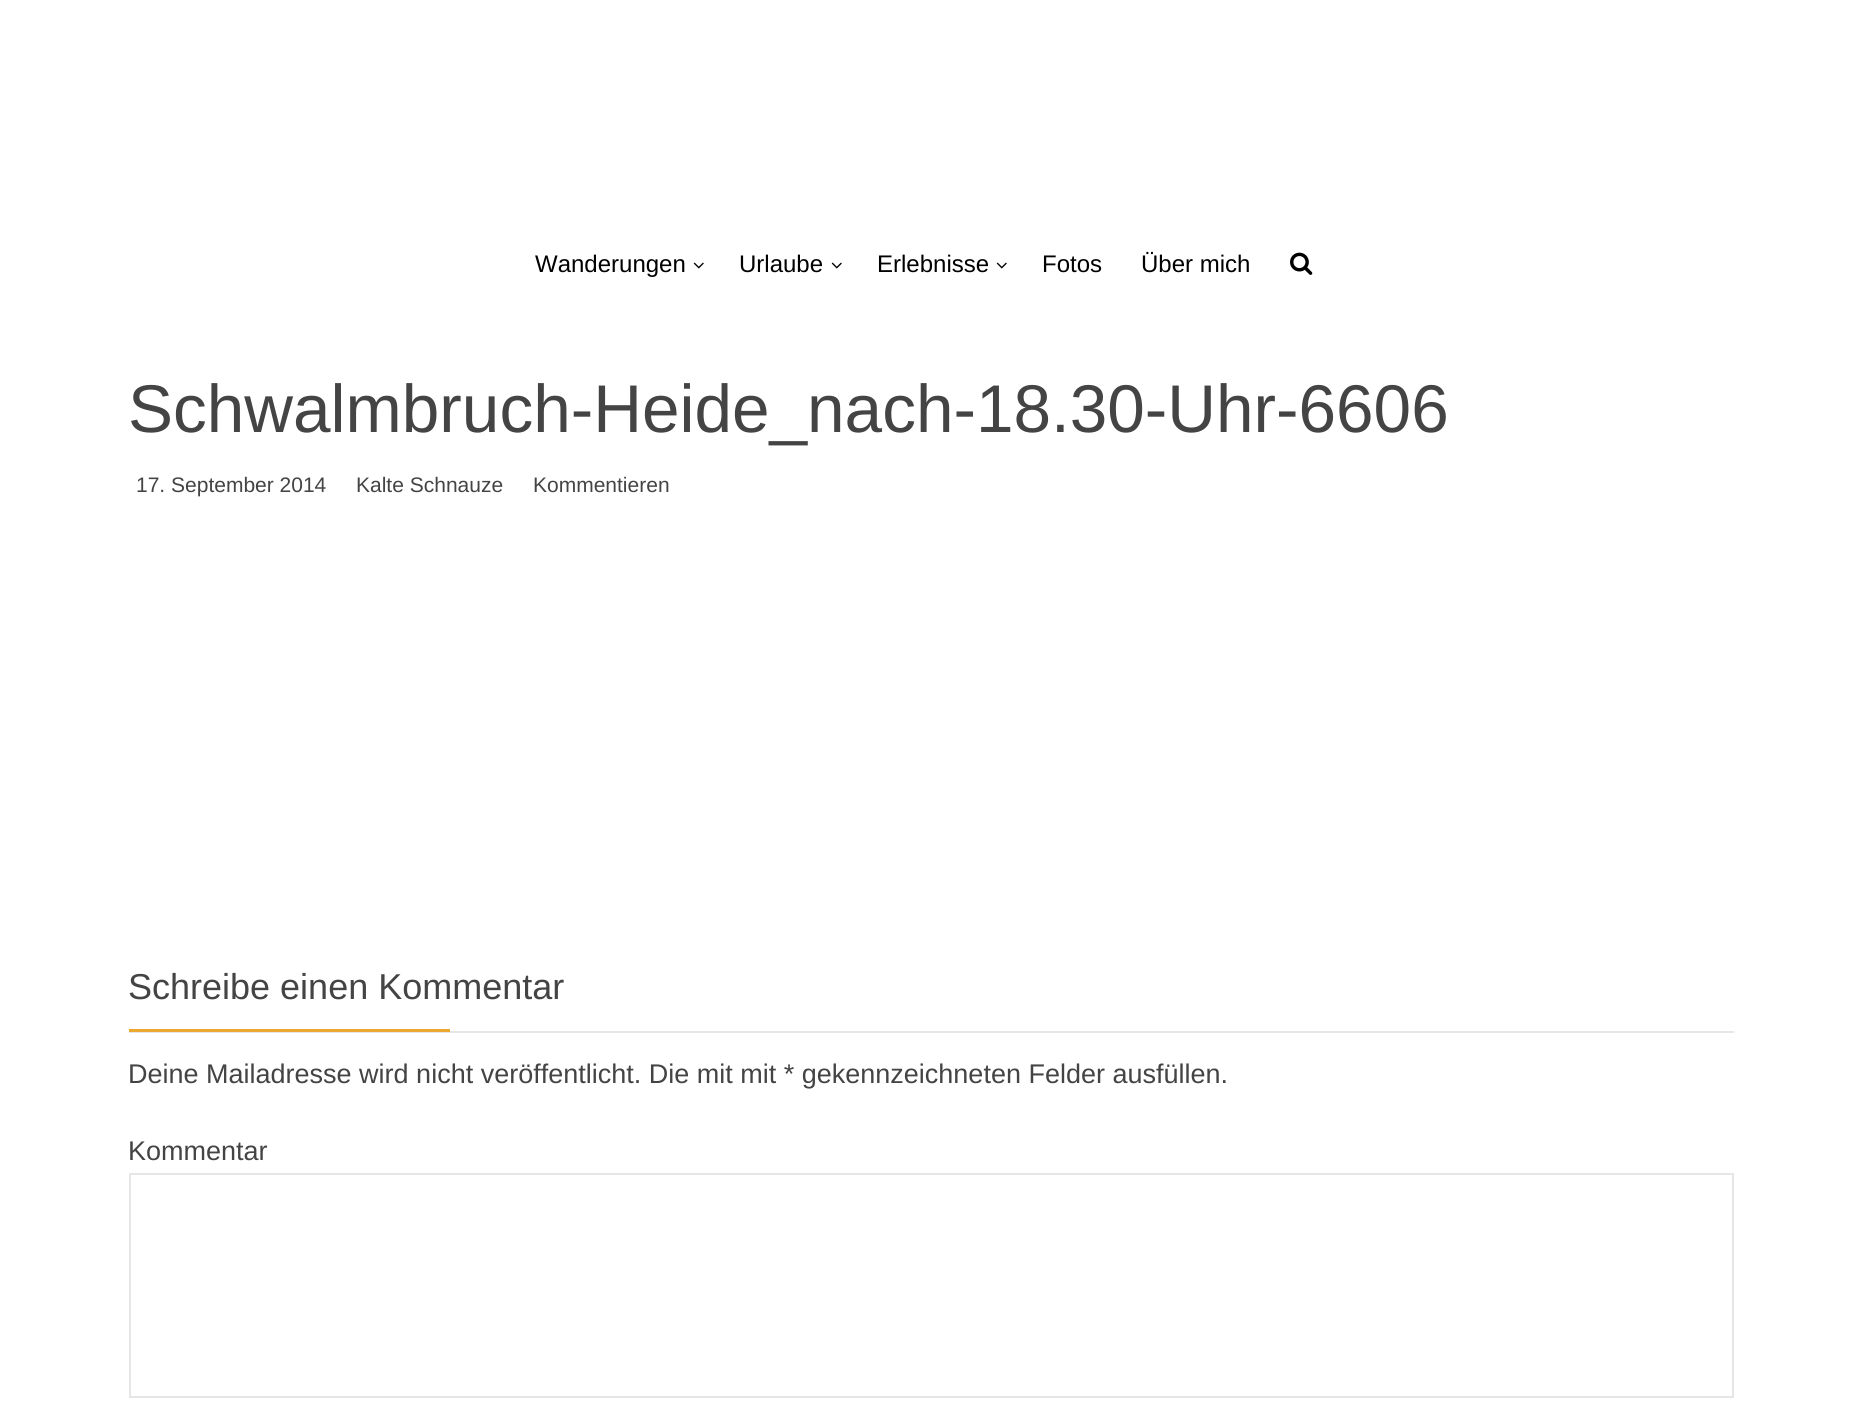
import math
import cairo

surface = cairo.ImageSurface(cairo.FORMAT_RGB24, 1861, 1403)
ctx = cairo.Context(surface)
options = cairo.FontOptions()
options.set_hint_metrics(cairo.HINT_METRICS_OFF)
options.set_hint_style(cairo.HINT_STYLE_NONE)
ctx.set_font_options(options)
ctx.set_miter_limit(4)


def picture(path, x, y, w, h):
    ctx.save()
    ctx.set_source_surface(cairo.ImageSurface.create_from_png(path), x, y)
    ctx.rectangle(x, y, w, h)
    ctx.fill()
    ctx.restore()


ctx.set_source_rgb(1, 1, 1)
ctx.paint()
ctx.select_font_face("Liberation Sans")
ctx.set_font_size(24)
ctx.set_source_rgb(0, 0, 0)
ctx.move_to(535, 272)
ctx.show_text("Wanderungen")
picture("img1.png", 693, 262, 11, 7)
ctx.move_to(739, 272)
ctx.show_text("Urlaube")
picture("img1.png", 831, 262, 11, 7)
ctx.move_to(877, 272)
ctx.show_text("Erlebnisse")
picture("img1.png", 996, 262, 11, 7)
ctx.move_to(1042, 272)
ctx.show_text("Fotos")
ctx.move_to(1141, 272)
ctx.show_text("Über mich")
picture("img2.png", 1290, 252, 23, 23)
ctx.set_font_size(67.5)
ctx.set_source_rgb(0.267, 0.267, 0.267)
ctx.move_to(128, 432)
ctx.show_text("Schwalmbruch-Heide_nach-18.30-Uhr-6606")
ctx.set_font_size(21)
ctx.move_to(136, 492)
ctx.show_text("17. September 2014")
ctx.move_to(356, 492)
ctx.show_text("Kalte Schnauze")
ctx.move_to(533, 492)
ctx.show_text("Kommentieren")
ctx.set_source_rgb(0.902, 0.902, 0.902)
ctx.rectangle(129, 1031, 1605, 2)
ctx.fill()
ctx.set_font_size(36)
ctx.set_source_rgb(0.267, 0.267, 0.267)
ctx.move_to(128, 999)
ctx.show_text("Schreibe einen Kommentar")
ctx.set_source_rgb(0.929, 0.659, 0.192)
ctx.rectangle(129, 1029, 321, 3)
ctx.fill()
ctx.set_font_size(27)
ctx.set_source_rgb(0.267, 0.267, 0.267)
ctx.move_to(128, 1083)
ctx.show_text("Deine Mailadresse wird nicht veröffentlicht. Die mit mit * gekennzeichneten Felder ausfüllen.")
ctx.move_to(128, 1160)
ctx.show_text("Kommentar")
ctx.rectangle(130, 1174, 1603, 223)
ctx.set_source_rgb(0.902, 0.902, 0.902)
ctx.stroke()
surface.write_to_png("page.png")
